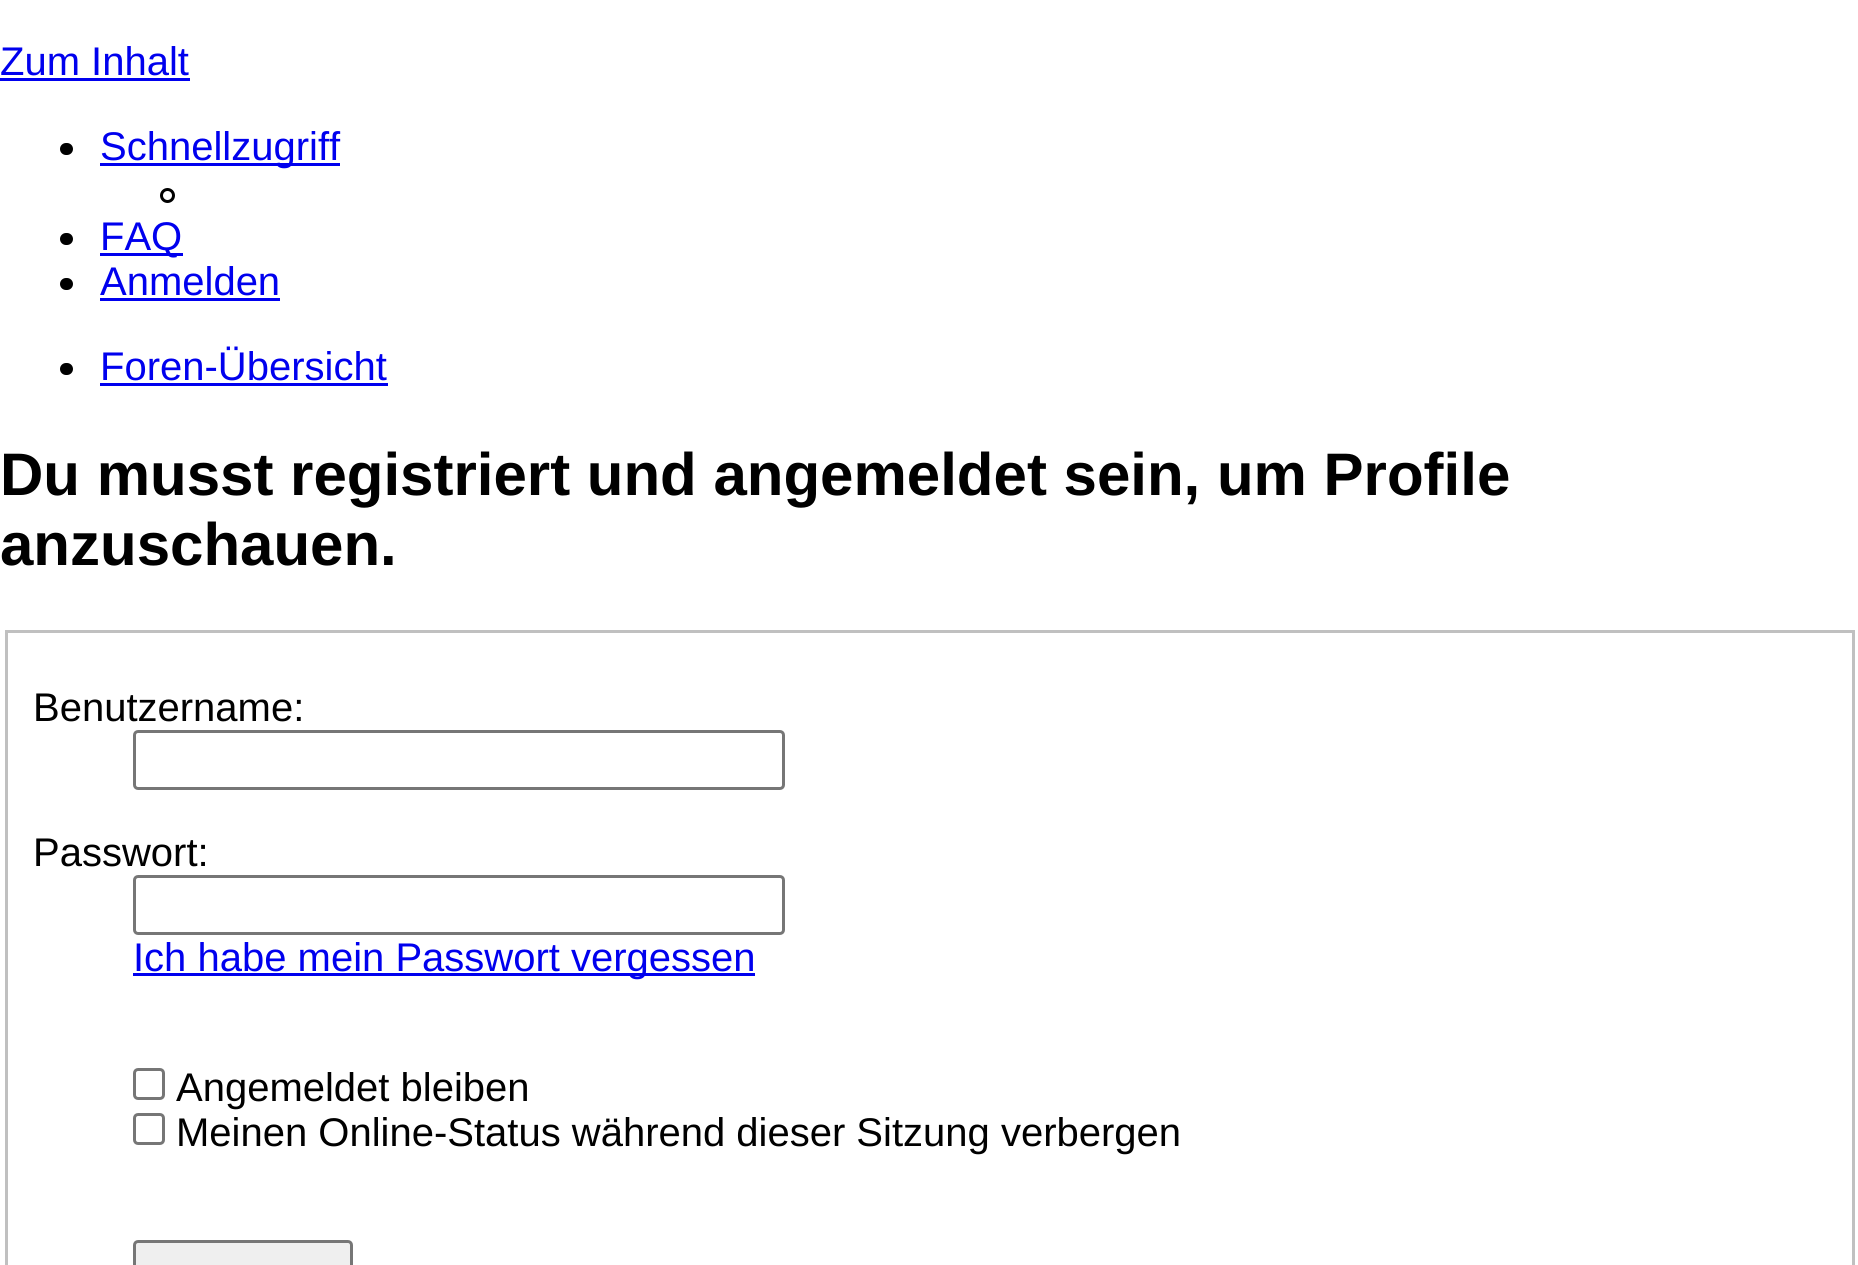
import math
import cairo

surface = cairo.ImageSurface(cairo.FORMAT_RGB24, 1858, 1265)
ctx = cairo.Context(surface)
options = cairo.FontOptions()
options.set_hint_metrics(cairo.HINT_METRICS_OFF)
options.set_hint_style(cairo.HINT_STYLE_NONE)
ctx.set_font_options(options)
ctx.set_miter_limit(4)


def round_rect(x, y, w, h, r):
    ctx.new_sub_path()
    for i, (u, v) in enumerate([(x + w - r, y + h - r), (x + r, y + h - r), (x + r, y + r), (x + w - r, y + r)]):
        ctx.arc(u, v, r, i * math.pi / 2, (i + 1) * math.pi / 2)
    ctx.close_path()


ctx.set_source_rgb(1, 1, 1)
ctx.paint()
ctx.select_font_face("Liberation Sans")
ctx.set_font_size(40)
ctx.set_source_rgb(0, 0, 0.933)
ctx.move_to(0, 75)
ctx.show_text("Zum Inhalt")
ctx.rectangle(0, 78, 190, 3)
ctx.fill()
ctx.set_source_rgb(0, 0, 0)
round_rect(60, 143, 13, 12, 6)
ctx.fill()
ctx.set_source_rgb(0, 0, 0.933)
ctx.rectangle(100, 163, 240, 3)
ctx.fill()
ctx.move_to(100, 160)
ctx.show_text("Schnellzugriff")
ctx.new_path()
ctx.arc(167.5, 195.5, 6, 0, 2 * math.pi)
ctx.set_source_rgb(0, 0, 0)
ctx.set_line_width(3)
ctx.stroke()
round_rect(60, 233, 13, 12, 6)
ctx.fill()
ctx.set_source_rgb(0, 0, 0.933)
ctx.rectangle(100, 253, 83, 3)
ctx.fill()
ctx.move_to(100, 250)
ctx.show_text("FAQ")
ctx.set_source_rgb(0, 0, 0)
round_rect(60, 278, 13, 12, 6)
ctx.fill()
ctx.set_source_rgb(0, 0, 0.933)
ctx.move_to(100, 295)
ctx.show_text("Anmelden")
ctx.rectangle(100, 298, 180, 3)
ctx.fill()
ctx.set_source_rgb(0, 0, 0)
round_rect(60, 363, 13, 12, 6)
ctx.fill()
ctx.set_source_rgb(0, 0, 0.933)
ctx.move_to(100, 380)
ctx.show_text("Foren-Übersicht")
ctx.rectangle(100, 383, 288, 3)
ctx.fill()
ctx.select_font_face("Liberation Sans", cairo.FONT_SLANT_NORMAL, cairo.FONT_WEIGHT_BOLD)
ctx.set_font_size(60)
ctx.set_source_rgb(0, 0, 0)
ctx.move_to(0, 495)
ctx.show_text("Du musst registriert und angemeldet sein, um Profile")
ctx.move_to(0, 565)
ctx.show_text("anzuschauen.")
ctx.rectangle(6.5, 631.5, 1847, 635)
ctx.set_source_rgb(0.753, 0.753, 0.753)
ctx.stroke()
ctx.select_font_face("Liberation Sans")
ctx.set_font_size(40)
ctx.set_source_rgb(0, 0, 0)
ctx.move_to(33, 721)
ctx.show_text("Benutzername:")
round_rect(134.5, 731.5, 649, 57, 3.5)
ctx.set_source_rgb(0.463, 0.463, 0.463)
ctx.stroke()
ctx.set_source_rgb(0, 0, 0)
ctx.move_to(33, 866)
ctx.show_text("Passwort:")
round_rect(134.5, 876.5, 649, 57, 3.5)
ctx.set_source_rgb(0.463, 0.463, 0.463)
ctx.stroke()
ctx.set_source_rgb(0, 0, 0.933)
ctx.rectangle(133, 973, 622, 3)
ctx.fill()
ctx.move_to(133, 971)
ctx.show_text("Ich habe mein Passwort vergessen")
round_rect(134.5, 1069.5, 29, 29, 3.5)
ctx.set_source_rgb(0.463, 0.463, 0.463)
ctx.stroke()
ctx.set_source_rgb(0, 0, 0)
ctx.move_to(176, 1101)
ctx.show_text("Angemeldet bleiben")
round_rect(134.5, 1114.5, 29, 29, 3.5)
ctx.set_source_rgb(0.463, 0.463, 0.463)
ctx.stroke()
ctx.set_source_rgb(0, 0, 0)
ctx.move_to(176, 1146)
ctx.show_text("Meinen Online-Status während dieser Sitzung verbergen")
ctx.set_source_rgb(0.937, 0.937, 0.937)
round_rect(134.5, 1241.5, 217, 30, 3.5)
ctx.fill_preserve()
ctx.set_source_rgb(0.463, 0.463, 0.463)
ctx.stroke()
surface.write_to_png("page.png")
